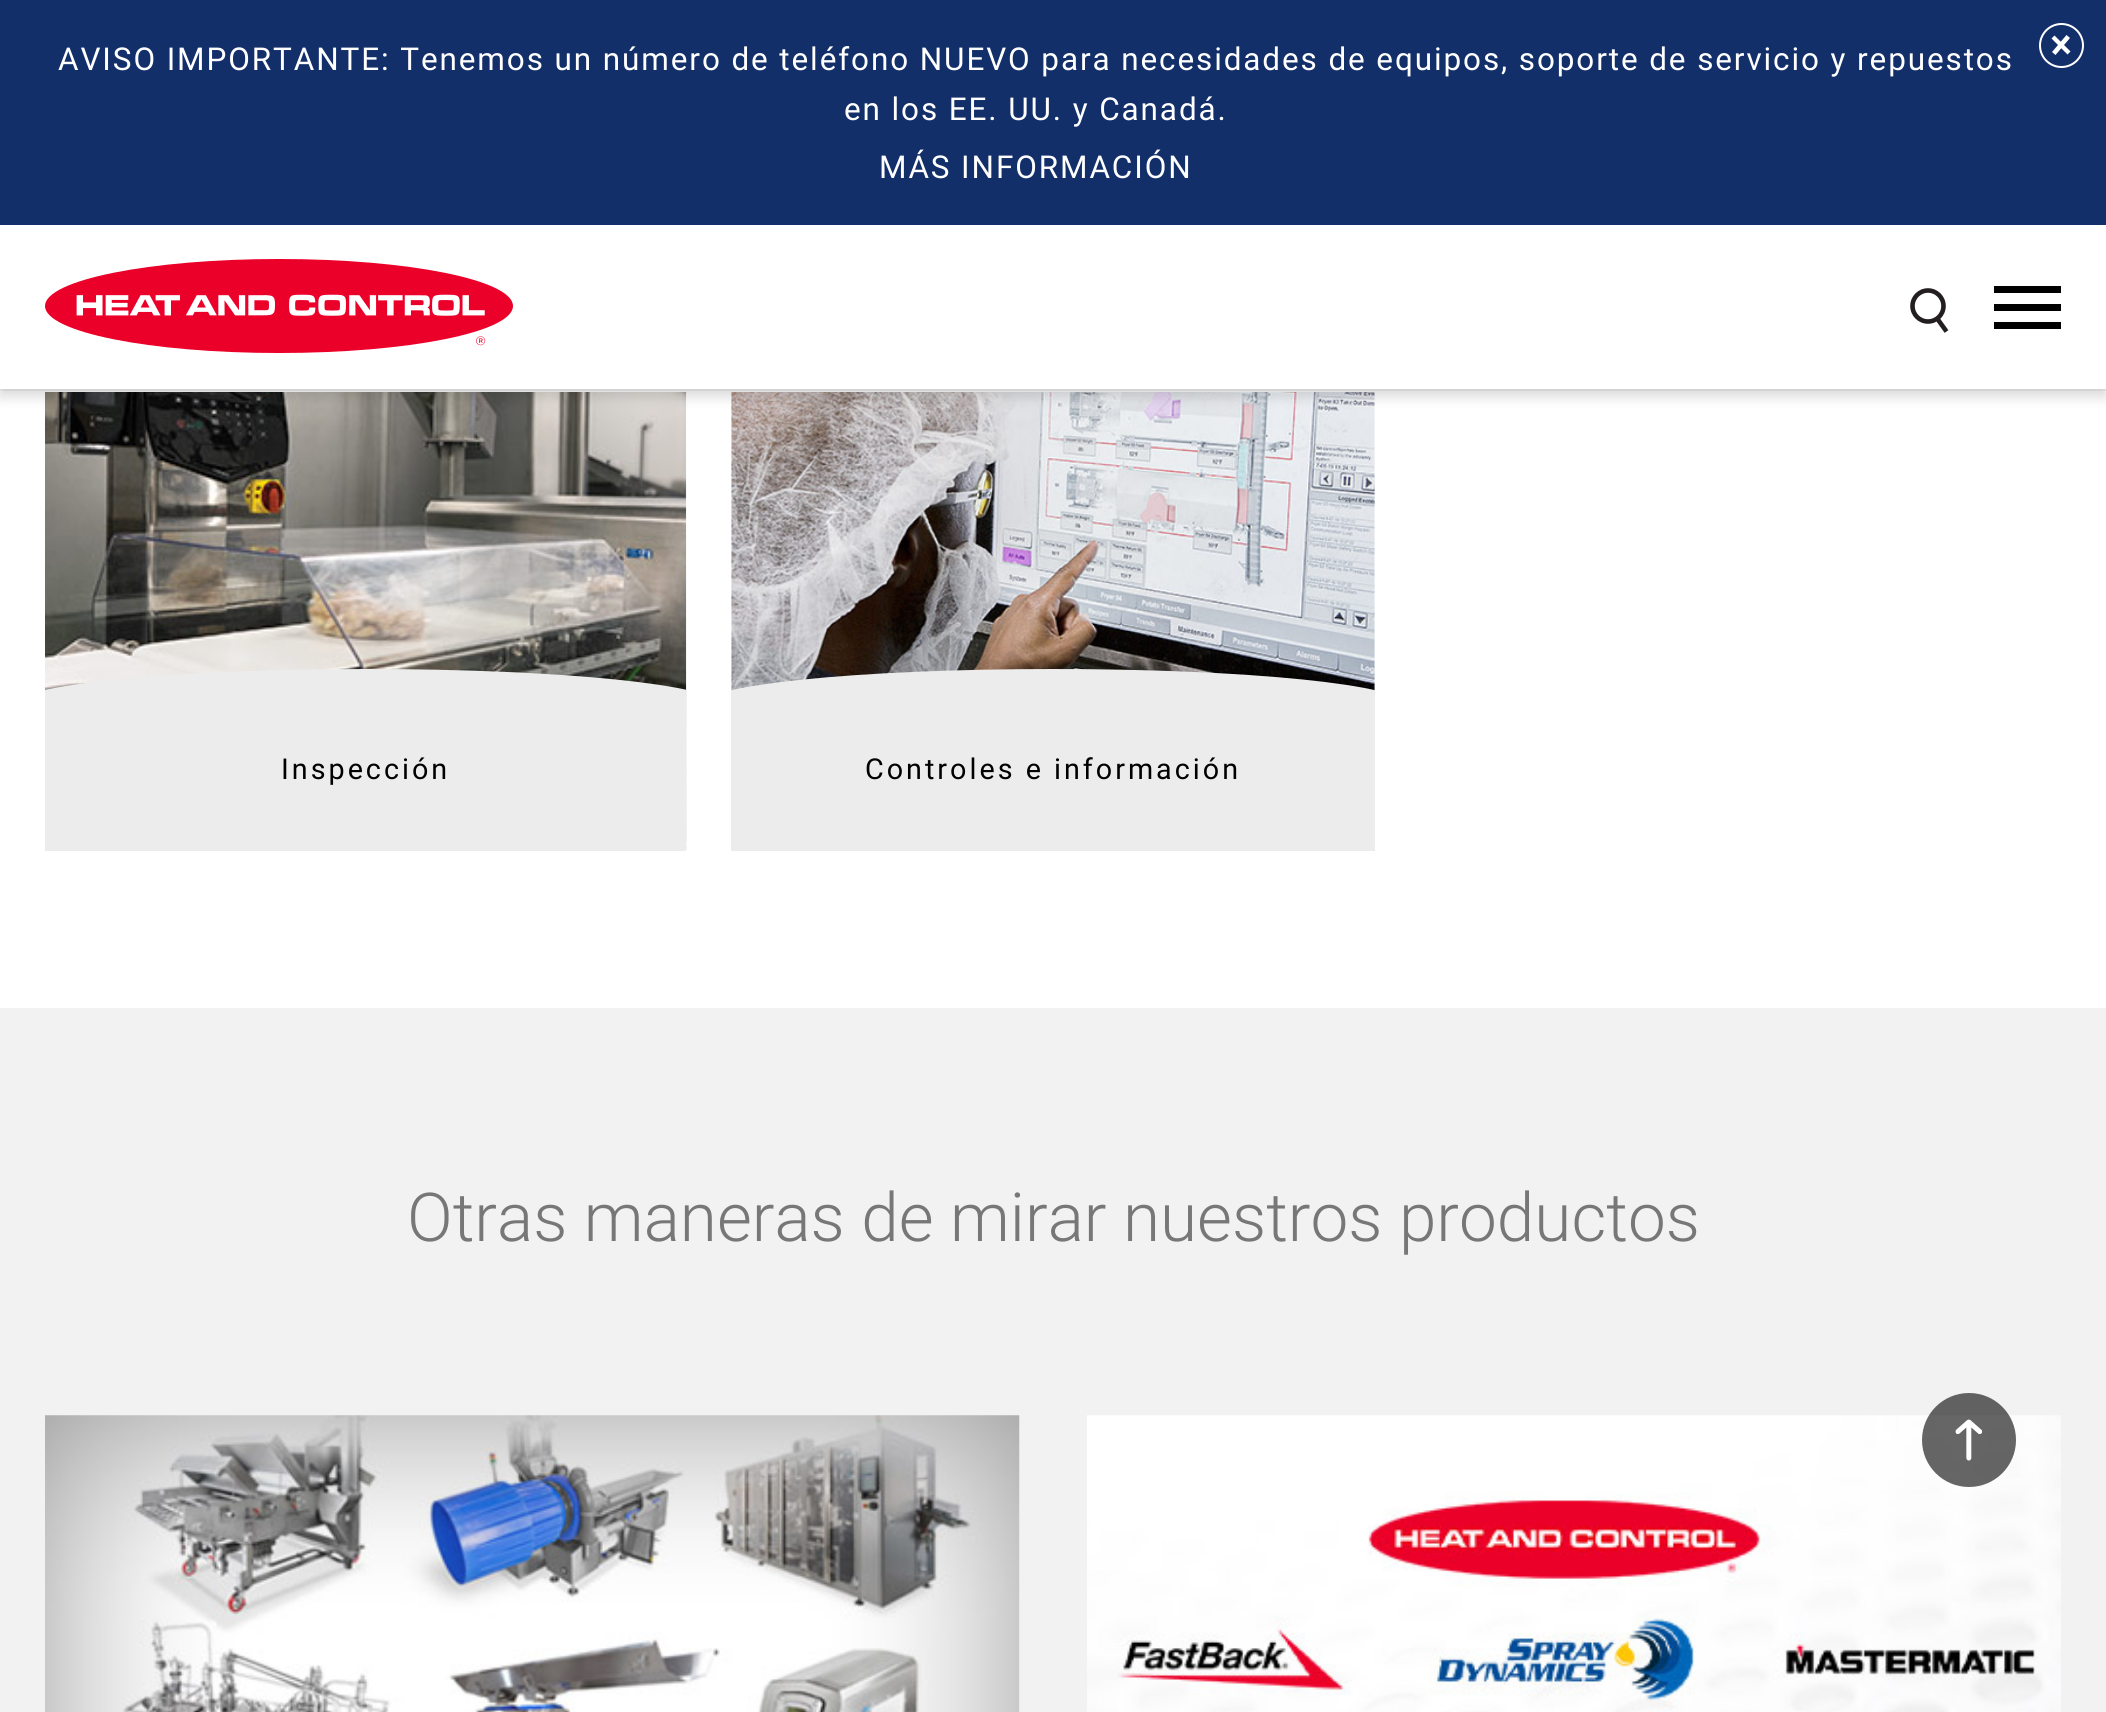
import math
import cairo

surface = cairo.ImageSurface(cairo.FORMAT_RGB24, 2106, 1712)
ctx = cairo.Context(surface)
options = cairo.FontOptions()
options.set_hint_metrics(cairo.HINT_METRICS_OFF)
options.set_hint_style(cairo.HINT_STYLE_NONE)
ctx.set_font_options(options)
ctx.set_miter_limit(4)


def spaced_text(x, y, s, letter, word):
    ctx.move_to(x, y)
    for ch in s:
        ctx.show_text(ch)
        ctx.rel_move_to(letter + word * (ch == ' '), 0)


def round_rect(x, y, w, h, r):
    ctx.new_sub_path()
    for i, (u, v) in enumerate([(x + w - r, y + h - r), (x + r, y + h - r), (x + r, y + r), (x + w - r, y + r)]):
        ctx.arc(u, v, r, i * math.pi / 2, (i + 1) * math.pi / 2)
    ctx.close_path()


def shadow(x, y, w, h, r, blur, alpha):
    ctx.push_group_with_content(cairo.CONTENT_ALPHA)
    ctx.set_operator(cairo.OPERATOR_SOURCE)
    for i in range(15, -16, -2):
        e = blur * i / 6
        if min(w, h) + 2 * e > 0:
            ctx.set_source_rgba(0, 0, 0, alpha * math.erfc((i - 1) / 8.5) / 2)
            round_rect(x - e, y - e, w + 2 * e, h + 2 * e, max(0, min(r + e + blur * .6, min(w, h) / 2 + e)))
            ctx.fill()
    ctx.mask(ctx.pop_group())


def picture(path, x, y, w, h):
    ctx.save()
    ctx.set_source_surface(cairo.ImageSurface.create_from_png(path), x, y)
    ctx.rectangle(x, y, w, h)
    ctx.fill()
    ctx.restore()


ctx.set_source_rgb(1, 1, 1)
ctx.paint()
ctx.set_source_rgb(0.953, 0.949, 0.949)
ctx.rectangle(0, 389, 2106, 2)
ctx.fill()
ctx.set_source_rgb(0.075, 0.184, 0.416)
ctx.rectangle(0, 0, 2106, 225)
ctx.fill()
ctx.select_font_face("Roboto")
ctx.set_font_size(31.5)
ctx.set_source_rgb(1, 1, 1)
spaced_text(58, 70, "AVISO IMPORTANTE: Tenemos un número de teléfono NUEVO para necesidades de equipos, soporte de servicio y repuestos", 1.89, 0)
spaced_text(844, 120, "en los EE. UU. y Canadá.", 1.89, 0)
spaced_text(879, 178, "MÁS INFORMACIÓN", 1.89, 0)
ctx.new_path()
ctx.arc(2061.5, 45.5, 21.5, 0, 2 * math.pi)
ctx.stroke()
ctx.new_path()
ctx.move_to(2054.5, 35.5)
ctx.line_to(2070.5, 51.5)
ctx.line_to(2067.5, 54.5)
ctx.line_to(2051.5, 38.5)
ctx.close_path()
ctx.fill()
ctx.new_path()
ctx.move_to(2070, 38)
ctx.line_to(2055.5, 55)
ctx.line_to(2052, 52)
ctx.line_to(2066.5, 35)
ctx.close_path()
ctx.fill()
picture("img2.png", 45, 392, 642, 458)
picture("img3.png", 731, 392, 644, 299)
ctx.save()
ctx.set_fill_rule(cairo.FILL_RULE_EVEN_ODD)
ctx.new_path()
ctx.move_to(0, 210)
ctx.line_to(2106, 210)
ctx.line_to(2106, 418)
ctx.line_to(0, 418)
ctx.close_path()
ctx.move_to(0, 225)
ctx.line_to(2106, 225)
ctx.line_to(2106, 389)
ctx.line_to(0, 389)
ctx.close_path()
ctx.clip()
ctx.set_source_rgb(0, 0, 0)
shadow(0, 232, 2106, 164, 0, 7, 0.16)
ctx.restore()
picture("img1.png", 45, 259, 468, 94)
ctx.arc(1928, 306, 15.5, 0, 2 * math.pi)
ctx.set_source_rgb(0.137, 0.122, 0.125)
ctx.set_line_width(4.6)
ctx.stroke()
ctx.new_path()
ctx.move_to(1937.5, 319)
ctx.line_to(1946.5, 331.5)
ctx.stroke()
ctx.set_source_rgb(0, 0, 0)
ctx.rectangle(1994, 286, 67, 7)
ctx.fill()
ctx.rectangle(1994, 304, 67, 7)
ctx.fill()
ctx.rectangle(1994, 322, 67, 7)
ctx.fill()
ctx.save()
ctx.rectangle(45, 176, 641, 675)
ctx.clip()
ctx.set_source_rgb(0.925, 0.925, 0.925)
ctx.new_path()
ctx.move_to(719, 737)
ctx.line_to(13, 737)
ctx.line_to(13, 705)
ctx.curve_to(13, 685, 171, 669, 366, 669)
ctx.curve_to(561, 669, 719, 685, 719, 705)
ctx.close_path()
ctx.fill()
ctx.restore()
ctx.set_source_rgb(0.925, 0.925, 0.925)
ctx.rectangle(45, 737, 641, 114)
ctx.fill()
ctx.set_font_size(28.75)
ctx.set_source_rgb(0, 0, 0)
spaced_text(281, 779, "Inspección", 3, 0)
ctx.save()
ctx.rectangle(731, 176, 644, 675)
ctx.clip()
ctx.set_source_rgb(0.925, 0.925, 0.925)
ctx.new_path()
ctx.move_to(1406, 737)
ctx.line_to(700, 737)
ctx.line_to(700, 705)
ctx.curve_to(700, 685, 858, 669, 1053, 669)
ctx.curve_to(1248, 669, 1406, 685, 1406, 705)
ctx.close_path()
ctx.fill()
ctx.restore()
ctx.set_source_rgb(0.925, 0.925, 0.925)
ctx.rectangle(731, 737, 644, 114)
ctx.fill()
ctx.set_source_rgb(0, 0, 0)
spaced_text(865, 779, "Controles e información", 3, 0)
ctx.set_source_rgb(0.953, 0.949, 0.949)
ctx.rectangle(0, 1008, 2106, 704)
ctx.fill()
ctx.select_font_face("Roboto Light")
ctx.set_font_size(67.5)
ctx.set_source_rgb(0.467, 0.467, 0.467)
ctx.move_to(407, 1241)
ctx.show_text("Otras maneras de mirar nuestros productos")
picture("img4.png", 45, 1415, 975, 297)
picture("img5.png", 1087, 1415, 974, 297)
ctx.set_source_rgba(0, 0, 0, 0.6)
ctx.new_path()
ctx.move_to(1922, 1440)
ctx.curve_to(1922, 1414, 1943, 1393, 1969, 1393)
ctx.curve_to(1995, 1393, 2016, 1414, 2016, 1440)
ctx.curve_to(2016, 1466, 1995, 1487, 1969, 1487)
ctx.curve_to(1943, 1487, 1922, 1466, 1922, 1440)
ctx.close_path()
ctx.fill()
picture("img6.png", 1955, 1419, 28, 42)
surface.write_to_png("page.png")
